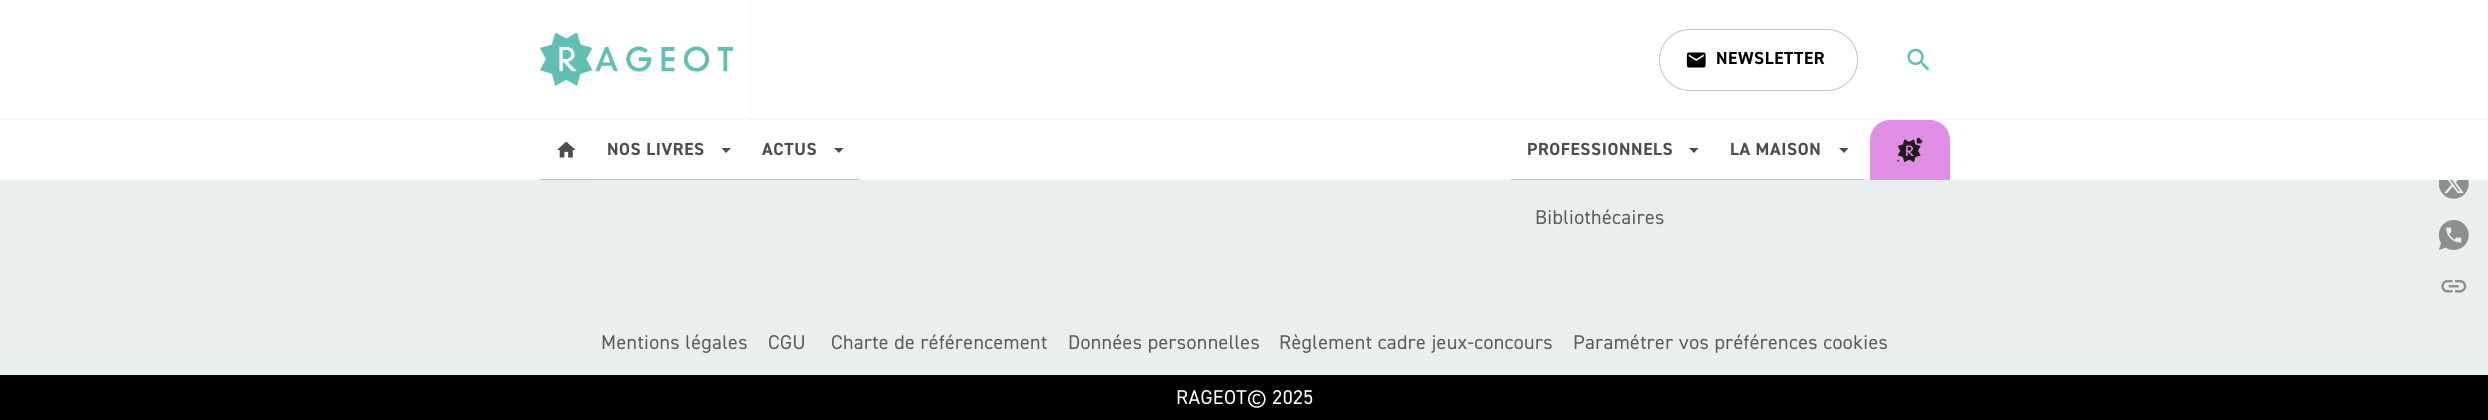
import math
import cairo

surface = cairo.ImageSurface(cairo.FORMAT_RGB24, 2488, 420)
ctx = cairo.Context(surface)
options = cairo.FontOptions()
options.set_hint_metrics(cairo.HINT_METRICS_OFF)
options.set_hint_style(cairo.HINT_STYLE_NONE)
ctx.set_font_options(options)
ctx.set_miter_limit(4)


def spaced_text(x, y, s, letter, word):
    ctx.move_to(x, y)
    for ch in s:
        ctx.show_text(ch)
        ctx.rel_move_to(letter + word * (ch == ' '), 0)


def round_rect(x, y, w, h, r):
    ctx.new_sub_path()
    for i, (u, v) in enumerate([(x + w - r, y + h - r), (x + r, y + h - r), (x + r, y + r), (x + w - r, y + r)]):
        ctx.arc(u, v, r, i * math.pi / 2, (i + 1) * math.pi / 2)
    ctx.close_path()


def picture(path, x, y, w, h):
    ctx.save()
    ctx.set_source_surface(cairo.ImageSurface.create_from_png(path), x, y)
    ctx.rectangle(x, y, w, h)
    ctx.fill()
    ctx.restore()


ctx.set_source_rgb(0.914, 0.937, 0.937)
ctx.paint()
ctx.set_source_rgb(1, 1, 1)
ctx.rectangle(0, 0, 2488, 119)
ctx.fill()
ctx.set_source_rgb(0.965, 0.965, 0.965)
ctx.rectangle(0, 119, 2488, 1)
ctx.fill()
ctx.rectangle(750, 0, 1, 119)
ctx.fill()
picture("img1.png", 540, 33, 193, 53)
round_rect(1659.5, 29.5, 198, 61, 30.5)
ctx.set_source_rgb(0.769, 0.769, 0.769)
ctx.set_line_width(1)
ctx.stroke()
picture("img2.png", 1686, 52, 20, 16)
ctx.select_font_face("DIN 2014", cairo.FONT_SLANT_NORMAL, cairo.FONT_WEIGHT_BOLD)
ctx.set_font_size(17.5)
ctx.set_source_rgb(0, 0, 0)
spaced_text(1716, 64, "NEWSLETTER", 0.6, 0)
picture("img3.png", 1907, 48, 23, 23)
ctx.set_source_rgb(1, 1, 1)
ctx.rectangle(0, 120, 2488, 59)
ctx.fill()
picture("img4.png", 557, 141, 19, 17)
ctx.set_source_rgb(0.965, 0.965, 0.965)
ctx.rectangle(0, 179, 2488, 1)
ctx.fill()
ctx.set_source_rgb(0.761, 0.761, 0.761)
ctx.rectangle(540, 179, 53, 1)
ctx.fill()
ctx.set_source_rgb(0.302, 0.302, 0.302)
spaced_text(607, 155, "NOS LIVRES", 0.6, 0)
ctx.new_path()
ctx.move_to(721.5, 148)
ctx.line_to(731, 148)
ctx.line_to(726, 153)
ctx.close_path()
ctx.fill()
ctx.set_source_rgb(0.78, 0.78, 0.78)
ctx.rectangle(593, 179, 267, 1)
ctx.fill()
ctx.set_source_rgb(0.302, 0.302, 0.302)
spaced_text(762, 155, "ACTUS", 0.6, 0)
ctx.new_path()
ctx.move_to(834, 148)
ctx.line_to(843.5, 148)
ctx.line_to(839, 153)
ctx.close_path()
ctx.fill()
spaced_text(1527, 155, "PROFESSIONNELS", 0.6, 0)
ctx.new_path()
ctx.move_to(1689, 148)
ctx.line_to(1698.5, 148)
ctx.line_to(1694, 153)
ctx.close_path()
ctx.fill()
ctx.set_source_rgb(0.78, 0.78, 0.78)
ctx.rectangle(1511, 179, 354, 1)
ctx.fill()
ctx.set_source_rgb(0.302, 0.302, 0.302)
spaced_text(1730, 155, "LA MAISON", 0.6, 0)
ctx.new_path()
ctx.move_to(1839, 148)
ctx.line_to(1848.5, 148)
ctx.line_to(1844, 153)
ctx.close_path()
ctx.fill()
ctx.set_source_rgb(0.882, 0.561, 0.898)
ctx.new_path()
ctx.move_to(1890, 120)
ctx.line_to(1930, 120)
ctx.curve_to(1941, 120, 1950, 129, 1950, 140)
ctx.line_to(1950, 180)
ctx.line_to(1870, 180)
ctx.line_to(1870, 140)
ctx.curve_to(1870, 129, 1879, 120, 1890, 120)
ctx.close_path()
ctx.fill()
picture("img5.png", 1896, 136, 28, 28)
ctx.select_font_face("DIN 2014")
ctx.set_font_size(20)
ctx.set_source_rgb(0.361, 0.361, 0.361)
spaced_text(1535, 224, "Bibliothécaires", 0.35, 0)
spaced_text(601, 349, "Mentions légales", 0.35, 0)
spaced_text(768, 349, "CGU", 0.35, 0)
spaced_text(831, 349, "Charte de référencement", 0.35, 0)
spaced_text(1068, 349, "Données personnelles", 0.35, 0)
spaced_text(1279, 349, "Règlement cadre jeux-concours", 0.35, 0)
spaced_text(1573, 349, "Paramétrer vos préférences cookies", 0.35, 0)
ctx.set_source_rgb(0, 0, 0)
ctx.rectangle(0, 375, 2488, 45)
ctx.fill()
ctx.set_source_rgb(1, 1, 1)
spaced_text(1176, 404, "RAGEOT© 2025", 0.35, 0)
picture("img6.png", 2439, 180, 30, 19)
picture("img7.png", 2439, 220, 30, 30)
picture("img8.png", 2441, 280, 26, 13)
surface.write_to_png("page.png")
